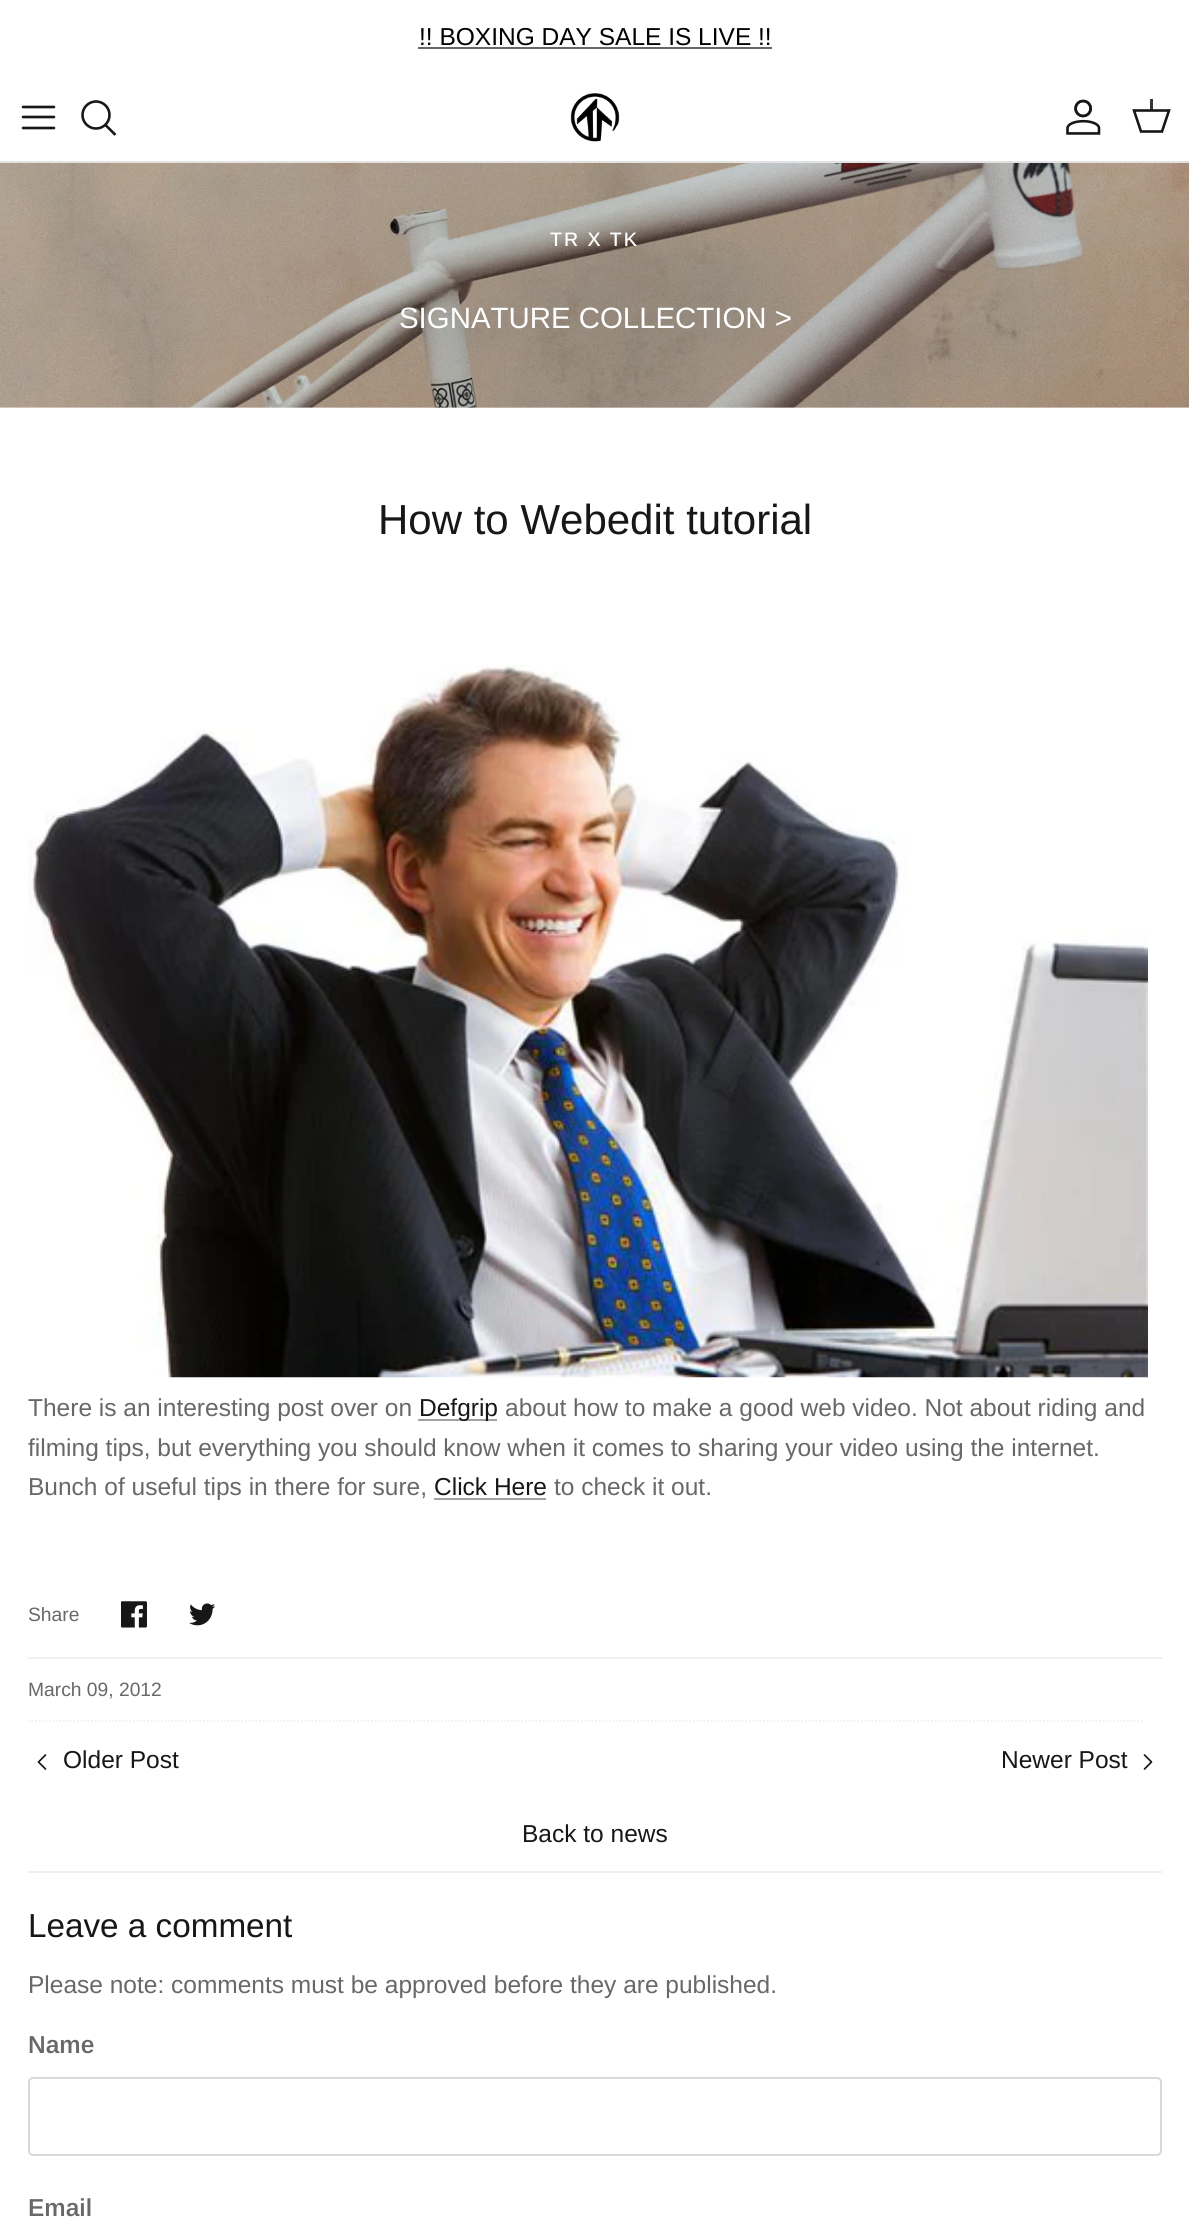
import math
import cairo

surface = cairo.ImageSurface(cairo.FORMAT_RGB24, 1189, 2220)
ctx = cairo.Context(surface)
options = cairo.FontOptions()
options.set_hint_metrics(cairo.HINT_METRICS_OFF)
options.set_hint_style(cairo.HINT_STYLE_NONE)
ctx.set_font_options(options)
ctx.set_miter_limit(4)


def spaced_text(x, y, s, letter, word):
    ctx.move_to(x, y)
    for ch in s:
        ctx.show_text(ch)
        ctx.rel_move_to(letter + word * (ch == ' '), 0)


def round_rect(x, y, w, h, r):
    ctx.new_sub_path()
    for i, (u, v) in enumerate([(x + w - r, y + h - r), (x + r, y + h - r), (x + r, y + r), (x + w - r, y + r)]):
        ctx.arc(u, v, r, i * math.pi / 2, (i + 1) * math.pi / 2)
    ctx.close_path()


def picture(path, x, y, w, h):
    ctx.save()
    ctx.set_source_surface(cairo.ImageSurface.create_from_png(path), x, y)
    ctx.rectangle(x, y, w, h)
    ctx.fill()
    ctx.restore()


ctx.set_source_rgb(1, 1, 1)
ctx.paint()
ctx.select_font_face("Arimo")
ctx.set_font_size(24.5)
ctx.set_source_rgb(0, 0, 0)
ctx.move_to(419, 45)
ctx.show_text("!! BOXING DAY SALE IS LIVE !!")
ctx.set_source_rgb(0.4, 0.4, 0.4)
ctx.rectangle(418, 47, 354, 2)
ctx.fill()
ctx.set_source_rgb(0.886, 0.886, 0.886)
ctx.rectangle(0, 161, 1189, 2)
ctx.fill()
ctx.new_path()
ctx.move_to(23, 117)
ctx.line_to(54, 117)
ctx.move_to(23, 107)
ctx.line_to(54, 107)
ctx.move_to(23, 128)
ctx.line_to(54, 128)
ctx.set_source_rgb(0.09, 0.09, 0.09)
ctx.set_line_width(2.6)
ctx.set_line_cap(cairo.LINE_CAP_ROUND)
ctx.set_line_join(cairo.LINE_JOIN_ROUND)
ctx.stroke()
ctx.arc(96, 115, 13.5, 0, 2 * math.pi)
ctx.set_line_cap(cairo.LINE_CAP_BUTT)
ctx.set_line_join(cairo.LINE_JOIN_MITER)
ctx.stroke()
ctx.new_path()
ctx.move_to(106.5, 126)
ctx.line_to(114.5, 134)
ctx.set_line_cap(cairo.LINE_CAP_SQUARE)
ctx.stroke()
picture("img1.png", 570, 93, 50, 49)
picture("img2.png", 1066, 99, 35, 36)
ctx.new_path()
ctx.move_to(1134, 110.5)
ctx.line_to(1169, 110.5)
ctx.line_to(1162, 131.5)
ctx.line_to(1141, 131.5)
ctx.close_path()
ctx.set_line_cap(cairo.LINE_CAP_BUTT)
ctx.stroke()
ctx.set_source_rgba(0.09, 0.09, 0.09, 0.87)
ctx.rectangle(1150, 99, 3, 12)
ctx.fill()
picture("img3.png", 0, 163, 1189, 245)
gradient = cairo.RadialGradient(0, 0, 0, 0, 0, 1)
gradient.set_matrix(cairo.Matrix(1 / 1089, 0, 0, 1 / 626, -1 * 595 / 1089, -1 * 285 / 626))
gradient.add_color_stop_rgba(0, 0, 0, 0, 0.15)
gradient.add_color_stop_rgba(0.7, 0, 0, 0, 0)
ctx.set_source(gradient)
ctx.rectangle(0, 163, 1189, 245)
ctx.fill()
ctx.select_font_face("Arimo Medium")
ctx.set_font_size(19.5)
ctx.set_source_rgb(1, 1, 1)
spaced_text(550, 246, "TR X TK", 2, 0)
ctx.select_font_face("Arimo")
ctx.set_font_size(29.4)
ctx.move_to(399, 328)
ctx.show_text("SIGNATURE COLLECTION >")
ctx.set_font_size(42)
ctx.set_source_rgb(0.09, 0.09, 0.09)
ctx.move_to(378, 534)
ctx.show_text("How to Webedit tutorial")
picture("img4.png", 28, 665, 1120, 713)
ctx.set_font_size(24.5)
ctx.set_source_rgb(0.404, 0.408, 0.412)
ctx.move_to(28, 1416)
ctx.show_text("There is an interesting post over on")
ctx.set_source_rgb(0.635, 0.635, 0.635)
ctx.rectangle(418, 1419, 79, 2)
ctx.fill()
ctx.set_source_rgb(0.09, 0.09, 0.09)
ctx.move_to(419, 1416)
ctx.show_text("Defgrip")
ctx.set_source_rgb(0.404, 0.408, 0.412)
ctx.move_to(505, 1416)
ctx.show_text("about how to make a good web video. Not about riding and")
ctx.move_to(28, 1456)
ctx.show_text("filming tips, but everything you should know when it comes to sharing your video using the internet.")
ctx.move_to(28, 1495)
ctx.show_text("Bunch of useful tips in there for sure,")
ctx.set_source_rgb(0.09, 0.09, 0.09)
ctx.move_to(434, 1495)
ctx.show_text("Click Here")
ctx.set_source_rgb(0.635, 0.635, 0.635)
ctx.rectangle(434, 1498, 112, 2)
ctx.fill()
ctx.set_source_rgb(0.404, 0.408, 0.412)
ctx.move_to(554, 1495)
ctx.show_text("to check it out.")
ctx.set_font_size(19.25)
ctx.move_to(28, 1621)
ctx.show_text("Share")
picture("img5.png", 121, 1601, 26, 27)
picture("img6.png", 189, 1603, 26, 23)
ctx.set_source_rgb(0.945, 0.945, 0.945)
ctx.rectangle(28, 1657, 1134, 2)
ctx.fill()
ctx.new_path()
ctx.move_to(28, 1721)
ctx.line_to(1144.5, 1721)
ctx.set_line_width(1.8)
ctx.set_dash([1.75, 1.75])
ctx.stroke()
ctx.set_source_rgb(0.404, 0.408, 0.412)
ctx.move_to(28, 1696)
ctx.show_text("March 09, 2012")
ctx.set_source_rgb(0.945, 0.945, 0.945)
ctx.rectangle(28, 1871, 1134, 2)
ctx.fill()
ctx.set_font_size(24.5)
ctx.set_source_rgb(0.09, 0.09, 0.09)
ctx.move_to(63, 1768)
ctx.show_text("Older Post")
ctx.new_path()
ctx.move_to(45.5, 1769)
ctx.line_to(38.5, 1762)
ctx.line_to(45.5, 1755)
ctx.set_line_width(1.7)
ctx.set_line_cap(cairo.LINE_CAP_ROUND)
ctx.set_line_join(cairo.LINE_JOIN_ROUND)
ctx.set_dash([])
ctx.stroke()
ctx.move_to(1001, 1768)
ctx.show_text("Newer Post")
ctx.new_path()
ctx.move_to(1144.5, 1769)
ctx.line_to(1151.5, 1762)
ctx.line_to(1144.5, 1755)
ctx.stroke()
ctx.move_to(522, 1842)
ctx.show_text("Back to news")
ctx.set_font_size(33.25)
ctx.move_to(28, 1937)
ctx.show_text("Leave a comment")
ctx.set_font_size(24.5)
ctx.set_source_rgb(0.404, 0.408, 0.412)
ctx.move_to(28, 1993)
ctx.show_text("Please note: comments must be approved before they are published.")
ctx.select_font_face("Arimo SemiBold")
ctx.move_to(28, 2053)
ctx.show_text("Name")
round_rect(29, 2078, 1132, 77, 4)
ctx.set_source_rgb(0.851, 0.851, 0.855)
ctx.set_line_width(2)
ctx.set_line_cap(cairo.LINE_CAP_BUTT)
ctx.set_line_join(cairo.LINE_JOIN_MITER)
ctx.stroke()
ctx.set_source_rgb(0.404, 0.408, 0.412)
ctx.move_to(28, 2216)
ctx.show_text("Email")
surface.write_to_png("page.png")
